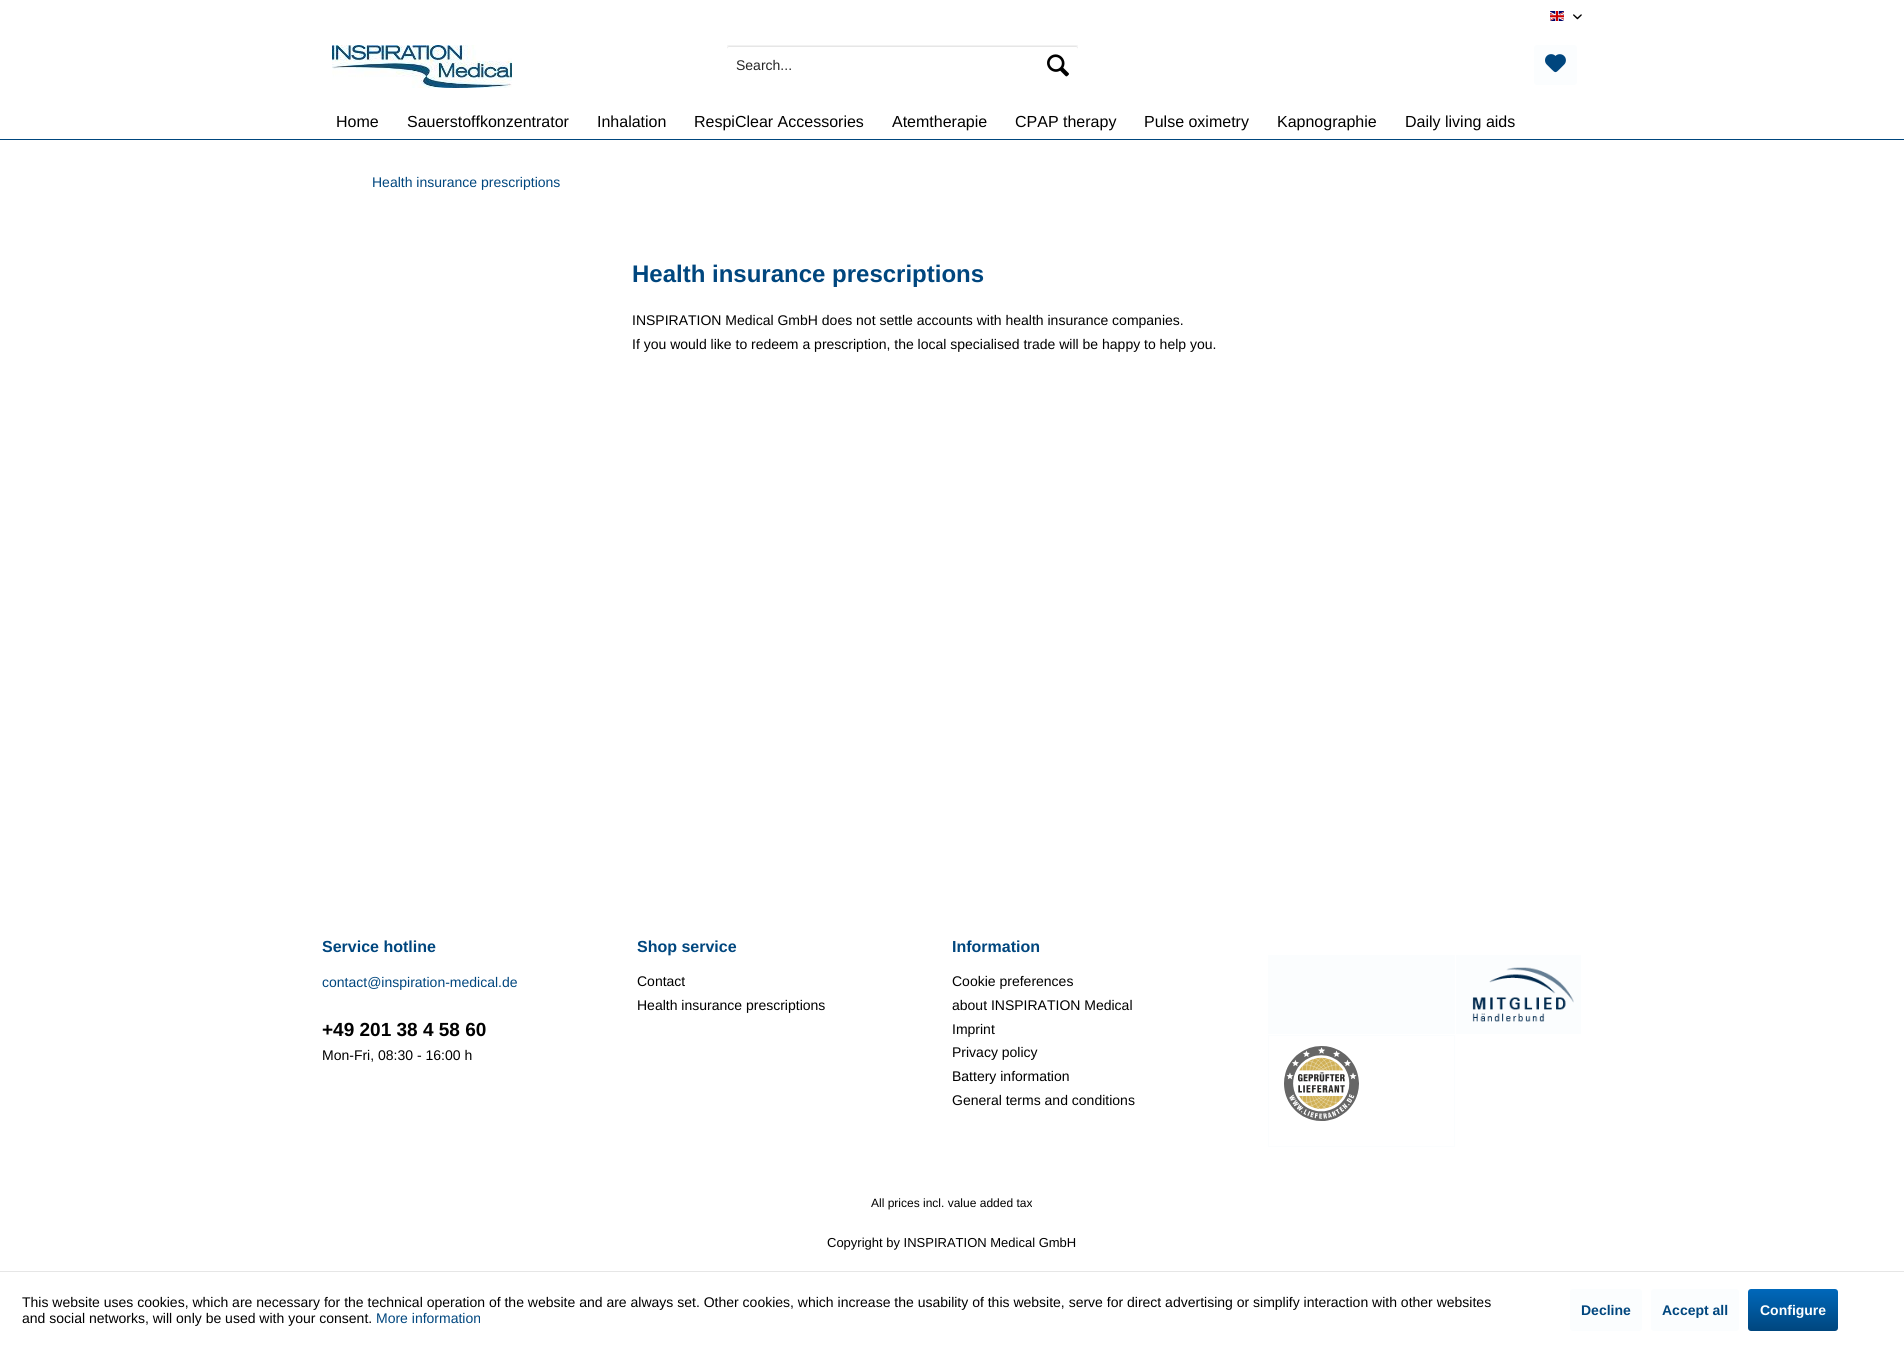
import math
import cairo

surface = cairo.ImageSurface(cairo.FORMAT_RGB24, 1904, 1348)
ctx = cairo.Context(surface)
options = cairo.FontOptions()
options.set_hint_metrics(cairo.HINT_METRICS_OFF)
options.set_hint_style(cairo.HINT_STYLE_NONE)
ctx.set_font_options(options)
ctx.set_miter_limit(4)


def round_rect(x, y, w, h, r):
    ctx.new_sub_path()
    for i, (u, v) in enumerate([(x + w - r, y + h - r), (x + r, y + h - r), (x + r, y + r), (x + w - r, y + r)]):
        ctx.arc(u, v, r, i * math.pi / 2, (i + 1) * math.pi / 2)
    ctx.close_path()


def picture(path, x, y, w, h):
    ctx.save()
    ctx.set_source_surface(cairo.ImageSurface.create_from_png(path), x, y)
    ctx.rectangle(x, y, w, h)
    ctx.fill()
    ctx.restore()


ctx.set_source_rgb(1, 1, 1)
ctx.paint()
picture("img1.png", 1550, 11, 14, 10)
picture("img2.png", 1573, 14, 9, 6)
picture("img3.png", 332, 45, 180, 43)
ctx.set_source_rgb(0.902, 0.902, 0.902)
ctx.new_path()
ctx.move_to(729, 47)
ctx.line_to(1076, 47)
ctx.curve_to(1077, 47, 1078, 48, 1078, 49)
ctx.curve_to(1078, 48, 1078, 46, 1076, 46)
ctx.line_to(729, 46)
ctx.curve_to(727, 46, 727, 48, 727, 49)
ctx.curve_to(727, 48, 728, 47, 729, 47)
ctx.close_path()
ctx.fill()
ctx.new_path()
ctx.move_to(727, 46)
ctx.line_to(729, 45.5)
ctx.line_to(1076, 45.5)
ctx.line_to(1078, 46)
ctx.set_source_rgb(0.949, 0.949, 0.949)
ctx.set_line_width(1)
ctx.stroke()
ctx.select_font_face("Liberation Sans")
ctx.set_font_size(14)
ctx.set_source_rgb(0.149, 0.149, 0.149)
ctx.move_to(736, 70)
ctx.show_text("Search...")
picture("img4.png", 1047, 54, 22, 23)
ctx.set_source_rgb(0.984, 0.992, 0.996)
round_rect(1534.5, 45.5, 42, 39, 2.5)
ctx.fill_preserve()
ctx.stroke()
picture("img5.png", 1545, 54, 21, 19)
ctx.set_source_rgb(0, 0.275, 0.494)
ctx.rectangle(0, 139, 1904, 1)
ctx.fill()
ctx.set_font_size(16)
ctx.set_source_rgb(0, 0, 0)
ctx.move_to(336, 127)
ctx.show_text("Home")
ctx.move_to(407, 127)
ctx.show_text("Sauerstoffkonzentrator")
ctx.move_to(597, 127)
ctx.show_text("Inhalation")
ctx.move_to(694, 127)
ctx.show_text("RespiClear Accessories")
ctx.move_to(892, 127)
ctx.show_text("Atemtherapie")
ctx.move_to(1015, 127)
ctx.show_text("CPAP therapy")
ctx.move_to(1144, 127)
ctx.show_text("Pulse oximetry")
ctx.move_to(1277, 127)
ctx.show_text("Kapnographie")
ctx.move_to(1405, 127)
ctx.show_text("Daily living aids")
ctx.set_font_size(14)
ctx.set_source_rgb(0, 0.275, 0.494)
ctx.move_to(372, 187)
ctx.show_text("Health insurance prescriptions")
ctx.select_font_face("Liberation Sans", cairo.FONT_SLANT_NORMAL, cairo.FONT_WEIGHT_BOLD)
ctx.set_font_size(24)
ctx.move_to(632, 282)
ctx.show_text("Health insurance prescriptions")
ctx.select_font_face("Liberation Sans")
ctx.set_font_size(14)
ctx.set_source_rgb(0, 0, 0)
ctx.move_to(632, 325)
ctx.show_text("INSPIRATION Medical GmbH does not settle accounts with health insurance companies.")
ctx.move_to(632, 349)
ctx.show_text("If you would like to redeem a prescription, the local specialised trade will be happy to help you.")
ctx.select_font_face("Liberation Sans", cairo.FONT_SLANT_NORMAL, cairo.FONT_WEIGHT_BOLD)
ctx.set_font_size(16)
ctx.set_source_rgb(0, 0.275, 0.494)
ctx.move_to(322, 952)
ctx.show_text("Service hotline")
ctx.select_font_face("Liberation Sans")
ctx.set_font_size(14)
ctx.move_to(322, 987)
ctx.show_text("contact@inspiration-medical.de")
ctx.select_font_face("Liberation Sans", cairo.FONT_SLANT_NORMAL, cairo.FONT_WEIGHT_BOLD)
ctx.set_font_size(19)
ctx.set_source_rgb(0, 0, 0)
ctx.move_to(322, 1036)
ctx.show_text("+49 201 38 4 58 60")
ctx.select_font_face("Liberation Sans")
ctx.set_font_size(14)
ctx.move_to(322, 1060)
ctx.show_text("Mon-Fri, 08:30 - 16:00 h")
ctx.select_font_face("Liberation Sans", cairo.FONT_SLANT_NORMAL, cairo.FONT_WEIGHT_BOLD)
ctx.set_font_size(16)
ctx.set_source_rgb(0, 0.275, 0.494)
ctx.move_to(637, 952)
ctx.show_text("Shop service")
ctx.select_font_face("Liberation Sans")
ctx.set_font_size(14)
ctx.set_source_rgb(0, 0, 0)
ctx.move_to(637, 986)
ctx.show_text("Contact")
ctx.move_to(637, 1010)
ctx.show_text("Health insurance prescriptions")
ctx.select_font_face("Liberation Sans", cairo.FONT_SLANT_NORMAL, cairo.FONT_WEIGHT_BOLD)
ctx.set_font_size(16)
ctx.set_source_rgb(0, 0.275, 0.494)
ctx.move_to(952, 952)
ctx.show_text("Information")
ctx.select_font_face("Liberation Sans")
ctx.set_font_size(14)
ctx.set_source_rgb(0, 0, 0)
ctx.move_to(952, 986)
ctx.show_text("Cookie preferences")
ctx.move_to(952, 1010)
ctx.show_text("about INSPIRATION Medical")
ctx.move_to(952, 1034)
ctx.show_text("Imprint")
ctx.move_to(952, 1057)
ctx.show_text("Privacy policy")
ctx.move_to(952, 1081)
ctx.show_text("Battery information")
ctx.move_to(952, 1105)
ctx.show_text("General terms and conditions")
ctx.set_source_rgb(0.984, 0.992, 0.996)
ctx.rectangle(1268, 955, 187, 79)
ctx.fill()
ctx.rectangle(1456, 955, 125, 79)
ctx.fill()
picture("img6.png", 1472, 967, 102, 55)
ctx.rectangle(1268.5, 1035.5, 186, 111)
ctx.stroke()
picture("img7.png", 1284, 1046, 75, 75)
ctx.set_font_size(12)
ctx.set_source_rgb(0, 0, 0)
ctx.move_to(871, 1207)
ctx.show_text("All prices incl. value added tax")
ctx.set_font_size(13)
ctx.move_to(827, 1247)
ctx.show_text("Copyright by INSPIRATION Medical GmbH")
ctx.set_source_rgb(0.902, 0.902, 0.902)
ctx.rectangle(0, 1271, 1904, 1)
ctx.fill()
ctx.set_font_size(14)
ctx.set_source_rgb(0, 0, 0)
ctx.move_to(22, 1307)
ctx.show_text("This website uses cookies, which are necessary for the technical operation of the website and are always set. Other cookies, which increase the usability of this website, serve for direct advertising or simplify interaction with other websites")
ctx.move_to(22, 1323)
ctx.show_text("and social networks, will only be used with your consent.")
ctx.set_source_rgb(0, 0.275, 0.494)
ctx.move_to(376, 1323)
ctx.show_text("More information")
ctx.set_source_rgb(0.984, 0.992, 0.996)
round_rect(1570.5, 1289.5, 71, 41, 2.5)
ctx.fill_preserve()
ctx.stroke()
ctx.select_font_face("Liberation Sans", cairo.FONT_SLANT_NORMAL, cairo.FONT_WEIGHT_BOLD)
ctx.set_source_rgb(0, 0.275, 0.494)
ctx.move_to(1581, 1315)
ctx.show_text("Decline")
ctx.set_source_rgb(0.984, 0.992, 0.996)
round_rect(1651.5, 1289.5, 87, 41, 2.5)
ctx.fill_preserve()
ctx.stroke()
ctx.set_source_rgb(0, 0.275, 0.494)
ctx.move_to(1662, 1315)
ctx.show_text("Accept all")
gradient = cairo.LinearGradient(1793, 1289, 1793, 1331)
gradient.add_color_stop_rgba(0, 0, 0.408, 0.733, 1)
gradient.add_color_stop_rgba(1, 0, 0.275, 0.494, 1)
ctx.set_source(gradient)
round_rect(1748, 1289, 90, 42, 3)
ctx.fill()
ctx.set_source_rgb(1, 1, 1)
ctx.move_to(1760, 1315)
ctx.show_text("Configure")
surface.write_to_png("page.png")
